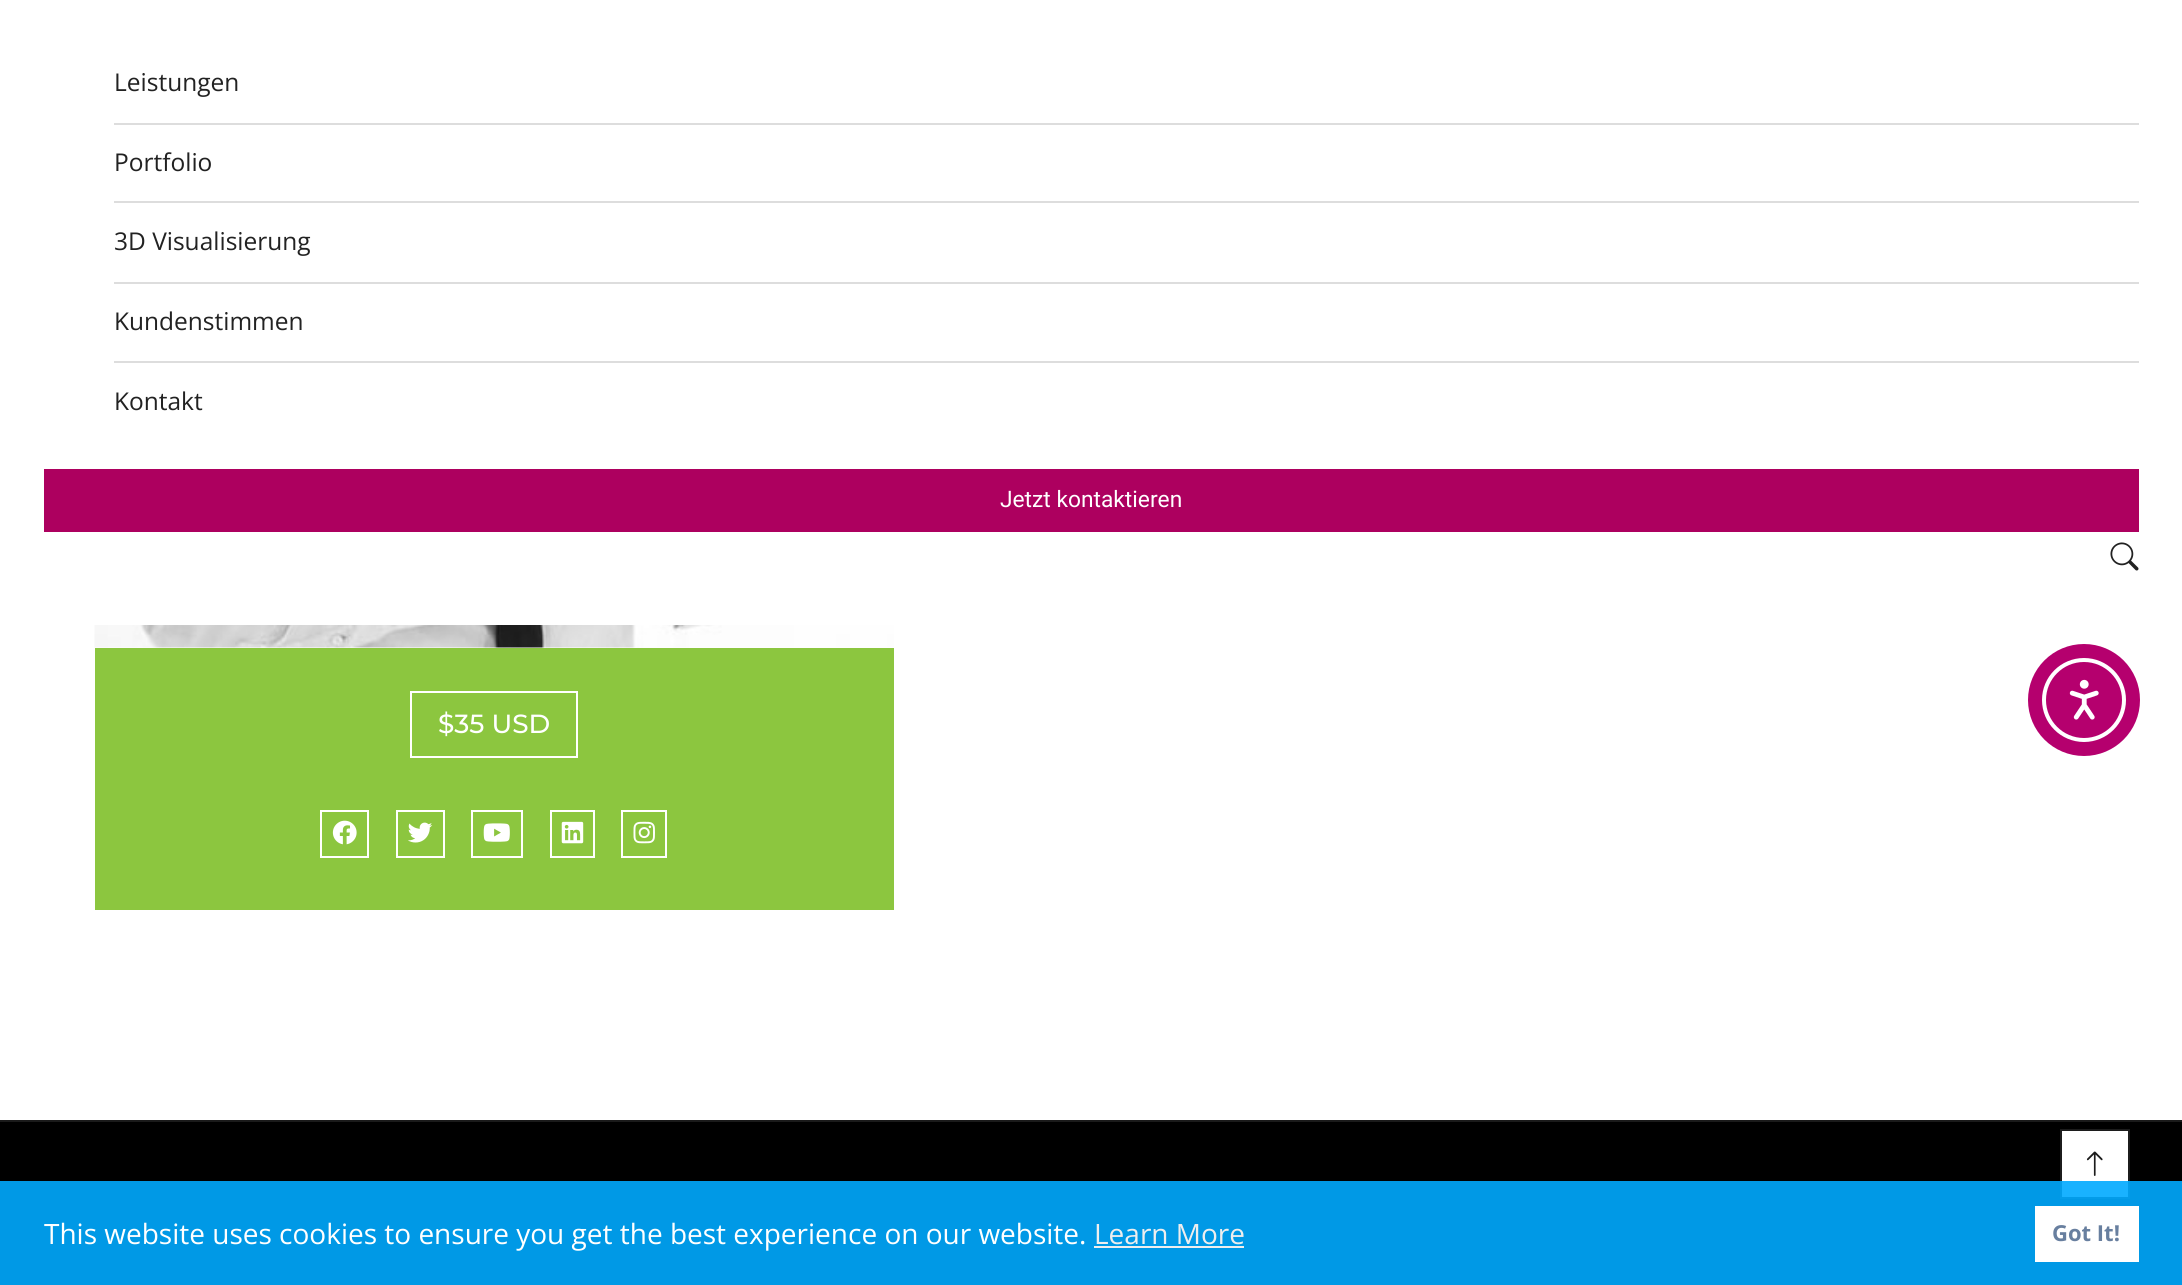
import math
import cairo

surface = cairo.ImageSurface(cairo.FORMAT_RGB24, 2182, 1285)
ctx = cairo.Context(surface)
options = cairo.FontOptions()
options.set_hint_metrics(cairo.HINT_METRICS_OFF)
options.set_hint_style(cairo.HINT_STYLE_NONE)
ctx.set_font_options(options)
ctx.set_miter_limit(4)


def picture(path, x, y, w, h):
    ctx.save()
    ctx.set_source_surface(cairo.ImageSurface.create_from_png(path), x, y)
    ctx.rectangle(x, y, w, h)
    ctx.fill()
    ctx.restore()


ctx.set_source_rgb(1, 1, 1)
ctx.paint()
ctx.set_source_rgb(0.867, 0.867, 0.867)
ctx.rectangle(114, 123, 2025, 2)
ctx.fill()
ctx.select_font_face("Open Sans")
ctx.set_font_size(24.5)
ctx.set_source_rgb(0.133, 0.133, 0.133)
ctx.move_to(114, 91)
ctx.show_text("Leistungen")
ctx.set_source_rgb(0.867, 0.867, 0.867)
ctx.rectangle(114, 201, 2025, 2)
ctx.fill()
ctx.set_source_rgb(0.133, 0.133, 0.133)
ctx.move_to(114, 171)
ctx.show_text("Portfolio")
ctx.set_source_rgb(0.867, 0.867, 0.867)
ctx.rectangle(114, 282, 2025, 2)
ctx.fill()
ctx.set_source_rgb(0.133, 0.133, 0.133)
ctx.move_to(114, 250)
ctx.show_text("3D Visualisierung")
ctx.set_source_rgb(0.867, 0.867, 0.867)
ctx.rectangle(114, 361, 2025, 2)
ctx.fill()
ctx.set_source_rgb(0.133, 0.133, 0.133)
ctx.move_to(114, 330)
ctx.show_text("Kundenstimmen")
ctx.move_to(114, 410)
ctx.show_text("Kontakt")
ctx.set_source_rgb(0.678, 0, 0.373)
ctx.rectangle(44, 469, 2095, 63)
ctx.fill()
ctx.select_font_face("Roboto")
ctx.set_font_size(22.75)
ctx.set_source_rgb(1, 1, 1)
ctx.move_to(1000, 507)
ctx.show_text("Jetzt kontaktieren")
picture("img1.png", 2110, 542, 29, 29)
picture("img2.png", 94, 625, 800, 23)
ctx.set_source_rgb(0.549, 0.776, 0.247)
ctx.rectangle(95, 648, 799, 262)
ctx.fill()
ctx.rectangle(411, 692, 166, 65)
ctx.set_source_rgb(1, 1, 1)
ctx.stroke()
ctx.select_font_face("Montserrat Medium")
ctx.set_font_size(26.25)
ctx.move_to(438, 733)
ctx.show_text("$35 USD")
ctx.rectangle(321, 811, 47, 46)
ctx.stroke()
picture("img3.png", 332, 820, 25, 25)
ctx.rectangle(397, 811, 47, 46)
ctx.stroke()
picture("img4.png", 408, 822, 25, 21)
ctx.rectangle(472, 811, 50, 46)
ctx.stroke()
picture("img5.png", 483, 823, 27, 19)
ctx.rectangle(551, 811, 43, 46)
ctx.stroke()
picture("img6.png", 561, 821, 23, 23)
ctx.rectangle(622, 811, 44, 46)
ctx.stroke()
picture("img7.png", 633, 821, 22, 23)
ctx.set_source_rgb(0, 0, 0)
ctx.rectangle(0, 1122, 2182, 163)
ctx.fill()
ctx.set_source_rgb(0.102, 0.102, 0.102)
ctx.rectangle(0, 1120, 2182, 2)
ctx.fill()
ctx.set_source_rgb(1, 1, 1)
ctx.rectangle(2061, 1130, 68, 68)
ctx.fill_preserve()
ctx.set_source_rgb(0.11, 0.11, 0.11)
ctx.stroke()
picture("img8.png", 2086, 1151, 17, 25)
ctx.set_source_rgb(0.71, 0, 0.431)
ctx.arc(2084, 700, 56, 0, 2 * math.pi)
ctx.fill()
ctx.arc(2084, 700, 40, 0, 2 * math.pi)
ctx.set_source_rgb(1, 1, 1)
ctx.set_line_width(4)
ctx.stroke()
picture("img9.png", 2069, 679, 30, 41)
ctx.set_source_rgba(0, 0.667, 1, 0.9)
ctx.rectangle(0, 1181, 2182, 104)
ctx.fill()
ctx.select_font_face("Open Sans")
ctx.set_font_size(28)
ctx.set_source_rgb(1, 1, 1)
ctx.move_to(44, 1244)
ctx.show_text("This website uses cookies to ensure you get the best experience on our website.")
ctx.set_source_rgb(0.933, 0.933, 0.933)
ctx.move_to(1094, 1244)
ctx.show_text("Learn More")
ctx.rectangle(1094, 1246, 150, 2)
ctx.fill()
ctx.set_source_rgb(1, 1, 1)
ctx.rectangle(2035, 1206, 104, 56)
ctx.fill()
ctx.select_font_face("Open Sans", cairo.FONT_SLANT_NORMAL, cairo.FONT_WEIGHT_BOLD)
ctx.set_font_size(22)
ctx.set_source_rgb(0.408, 0.498, 0.624)
ctx.move_to(2052, 1241)
ctx.show_text("Got It!")
surface.write_to_png("page.png")
